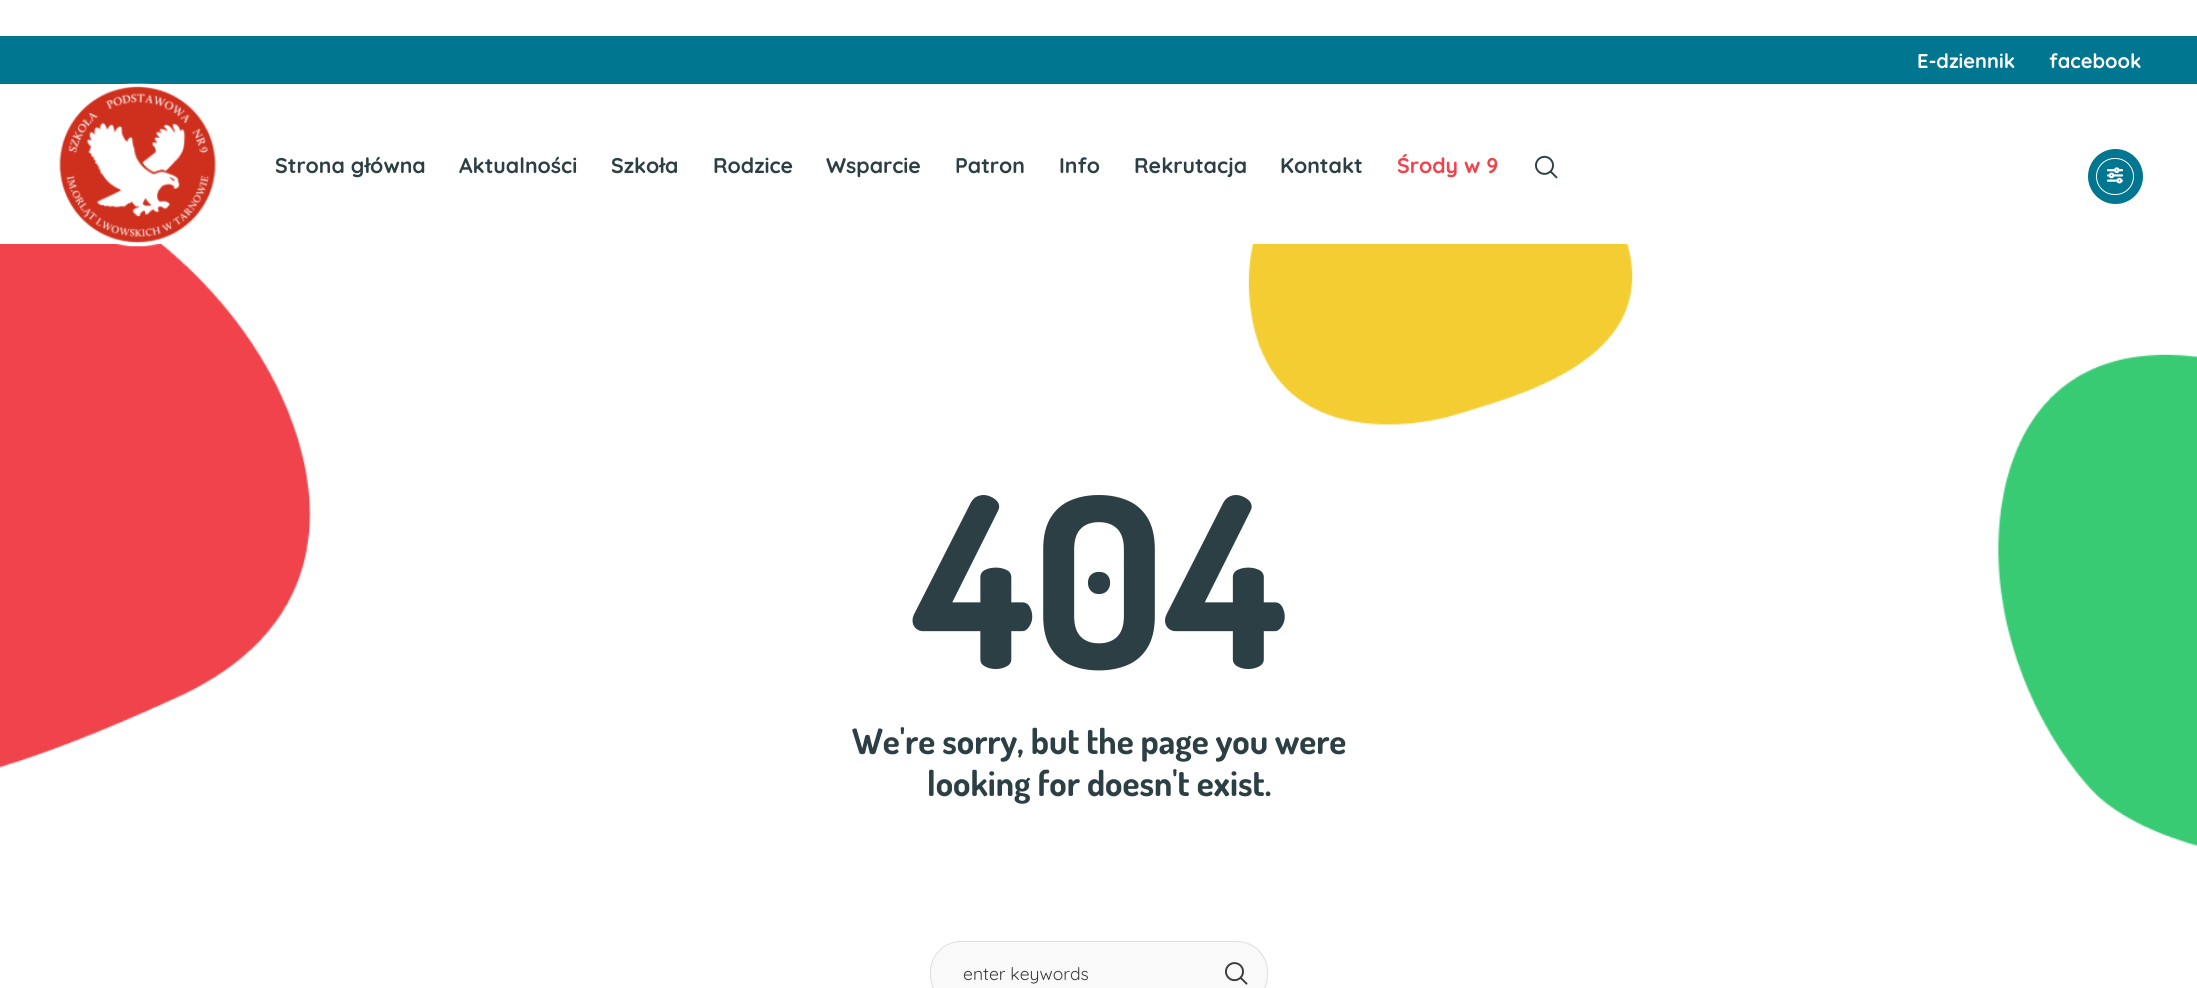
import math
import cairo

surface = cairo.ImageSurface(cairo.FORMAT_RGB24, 2197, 988)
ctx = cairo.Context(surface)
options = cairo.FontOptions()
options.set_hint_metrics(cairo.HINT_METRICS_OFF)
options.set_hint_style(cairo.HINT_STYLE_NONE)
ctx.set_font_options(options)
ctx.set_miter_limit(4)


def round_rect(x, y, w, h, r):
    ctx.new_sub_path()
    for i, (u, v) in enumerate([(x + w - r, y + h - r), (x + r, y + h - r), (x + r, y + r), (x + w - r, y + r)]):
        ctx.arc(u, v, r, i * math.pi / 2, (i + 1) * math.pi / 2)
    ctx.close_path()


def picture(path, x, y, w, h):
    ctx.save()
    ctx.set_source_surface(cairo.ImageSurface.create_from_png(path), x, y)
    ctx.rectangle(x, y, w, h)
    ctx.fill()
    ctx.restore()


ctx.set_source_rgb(1, 1, 1)
ctx.paint()
ctx.set_source_rgb(0, 0.463, 0.565)
ctx.rectangle(0, 36, 2197, 48)
ctx.fill()
ctx.select_font_face("Quicksand", cairo.FONT_SLANT_NORMAL, cairo.FONT_WEIGHT_BOLD)
ctx.set_font_size(20)
ctx.set_source_rgb(1, 1, 1)
ctx.move_to(1917, 68)
ctx.show_text("E-dziennik")
ctx.move_to(2049, 68)
ctx.show_text("facebook")
picture("img3.png", 0, 244, 2197, 602)
picture("img1.png", 59, 83, 157, 164)
ctx.set_font_size(21.25)
ctx.set_source_rgb(0.173, 0.247, 0.267)
ctx.move_to(275, 173)
ctx.show_text("Strona główna")
ctx.move_to(459, 173)
ctx.show_text("Aktualności")
ctx.move_to(611, 173)
ctx.show_text("Szkoła")
ctx.move_to(713, 173)
ctx.show_text("Rodzice")
ctx.move_to(826, 173)
ctx.show_text("Wsparcie")
ctx.move_to(955, 173)
ctx.show_text("Patron")
ctx.move_to(1059, 173)
ctx.show_text("Info")
ctx.move_to(1134, 173)
ctx.show_text("Rekrutacja")
ctx.move_to(1280, 173)
ctx.show_text("Kontakt")
ctx.set_source_rgb(0.945, 0.263, 0.294)
ctx.move_to(1397, 173)
ctx.show_text("Środy w 9")
picture("img2.png", 1535, 155, 23, 24)
ctx.select_font_face("Dosis", cairo.FONT_SLANT_NORMAL, cairo.FONT_WEIGHT_BOLD)
ctx.set_font_size(238)
ctx.set_source_rgb(0.173, 0.247, 0.267)
ctx.move_to(913, 669)
ctx.show_text("404")
ctx.set_font_size(35)
ctx.move_to(852, 754)
ctx.show_text("We're sorry, but the page you were")
ctx.move_to(927, 796)
ctx.show_text("looking for doesn't exist.")
ctx.set_source_rgb(0.973, 0.973, 0.973)
round_rect(930.5, 941.5, 337, 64, 30.5)
ctx.fill_preserve()
ctx.set_source_rgb(0.871, 0.871, 0.871)
ctx.set_line_width(1)
ctx.stroke()
ctx.select_font_face("Quicksand")
ctx.set_font_size(17.5)
ctx.set_source_rgb(0.227, 0.227, 0.227)
ctx.move_to(963, 980)
ctx.show_text("enter keywords")
picture("img4.png", 1225, 962, 23, 23)
ctx.set_source_rgb(0, 0.463, 0.565)
ctx.arc(2115.5, 176.5, 27.5, 0, 2 * math.pi)
ctx.fill()
round_rect(2096.5, 158.5, 37, 36, 18)
ctx.set_source_rgb(1, 1, 1)
ctx.stroke()
picture("img5.png", 2107, 167, 17, 17)
surface.write_to_png("page.png")
